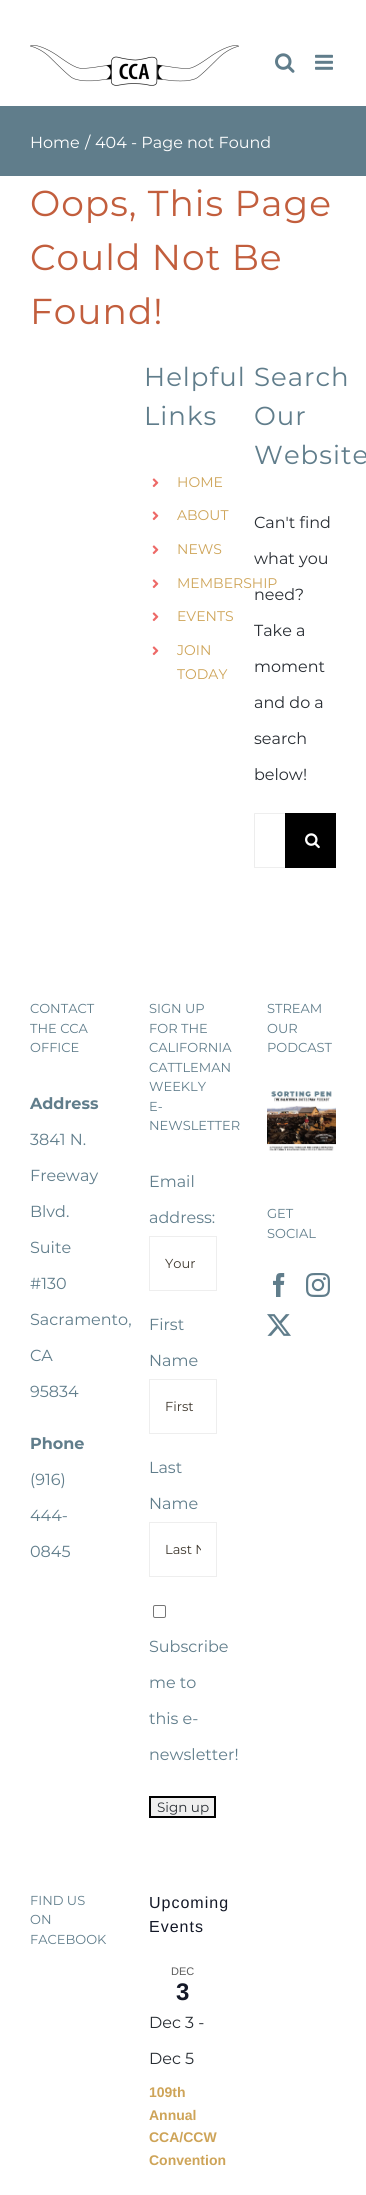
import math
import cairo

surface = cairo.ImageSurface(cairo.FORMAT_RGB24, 366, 2195)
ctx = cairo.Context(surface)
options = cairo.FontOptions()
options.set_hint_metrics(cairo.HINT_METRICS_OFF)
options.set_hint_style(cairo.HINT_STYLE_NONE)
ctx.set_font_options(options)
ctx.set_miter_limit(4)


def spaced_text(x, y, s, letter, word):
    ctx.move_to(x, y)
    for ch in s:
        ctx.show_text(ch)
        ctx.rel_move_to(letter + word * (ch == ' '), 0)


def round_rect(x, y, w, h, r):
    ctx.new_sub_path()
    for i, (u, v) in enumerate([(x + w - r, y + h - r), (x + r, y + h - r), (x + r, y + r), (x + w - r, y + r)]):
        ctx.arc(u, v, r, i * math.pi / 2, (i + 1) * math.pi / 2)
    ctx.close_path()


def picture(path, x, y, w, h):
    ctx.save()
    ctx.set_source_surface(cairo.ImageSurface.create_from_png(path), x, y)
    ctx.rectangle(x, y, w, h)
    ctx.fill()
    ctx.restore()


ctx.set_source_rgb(1, 1, 1)
ctx.paint()
picture("img1.png", 30, 45, 209, 41)
picture("img2.png", 275, 53, 20, 20)
picture("img3.png", 315, 54, 18, 16)
ctx.set_source_rgb(0.376, 0.49, 0.545)
ctx.rectangle(0, 106, 366, 70)
ctx.fill()
ctx.select_font_face("Montserrat")
ctx.set_font_size(16)
ctx.set_source_rgb(1, 1, 1)
ctx.move_to(30, 148)
ctx.show_text("Home")
ctx.move_to(85, 148)
ctx.show_text("/")
ctx.move_to(95, 148)
ctx.show_text("404 - Page not Found")
ctx.set_font_size(36)
ctx.set_source_rgb(0.761, 0.369, 0.239)
spaced_text(30, 216, "Oops, This Page", 1, 0)
spaced_text(30, 270, "Could Not Be", 1, 0)
spaced_text(30, 324, "Found!", 1, 0)
ctx.set_font_size(26)
ctx.set_source_rgb(0.376, 0.49, 0.545)
spaced_text(144, 386, "Helpful", 1, 0)
spaced_text(144, 425, "Links", 1, 0)
picture("img4.png", 152, 478, 7, 10)
ctx.set_font_size(14)
ctx.set_source_rgb(0.808, 0.643, 0.345)
ctx.move_to(177, 487)
ctx.show_text("HOME")
picture("img4.png", 152, 511, 7, 10)
ctx.move_to(177, 520)
ctx.show_text("ABOUT")
picture("img4.png", 152, 545, 7, 10)
ctx.move_to(177, 554)
ctx.show_text("NEWS")
picture("img4.png", 152, 579, 7, 10)
ctx.move_to(177, 588)
ctx.show_text("MEMBERSHIP")
picture("img4.png", 152, 612, 7, 10)
ctx.move_to(177, 621)
ctx.show_text("EVENTS")
picture("img4.png", 152, 646, 7, 10)
ctx.move_to(177, 655)
ctx.show_text("JOIN")
ctx.move_to(177, 679)
ctx.show_text("TODAY")
ctx.set_font_size(26)
ctx.set_source_rgb(0.376, 0.49, 0.545)
spaced_text(254, 386, "Search", 1, 0)
spaced_text(254, 425, "Our", 1, 0)
spaced_text(254, 464, "Website", 1, 0)
ctx.set_font_size(16)
ctx.set_source_rgb(0.157, 0.176, 0.2)
ctx.move_to(254, 528)
ctx.show_text("Can't find")
ctx.move_to(254, 564)
ctx.show_text("what you")
ctx.move_to(254, 600)
ctx.show_text("need?")
ctx.move_to(254, 636)
ctx.show_text("Take a")
ctx.move_to(254, 672)
ctx.show_text("moment")
ctx.move_to(254, 708)
ctx.show_text("and do a")
ctx.move_to(254, 744)
ctx.show_text("search")
ctx.move_to(254, 780)
ctx.show_text("below!")
ctx.set_source_rgb(0.933, 0.933, 0.933)
ctx.new_path()
ctx.move_to(254, 813)
ctx.line_to(285, 813)
ctx.line_to(285, 814)
ctx.line_to(255, 814)
ctx.close_path()
ctx.move_to(285, 868)
ctx.line_to(254, 868)
ctx.line_to(255, 867)
ctx.line_to(285, 867)
ctx.close_path()
ctx.fill()
ctx.set_source_rgba(0.863, 0.863, 0.863, 0.5)
ctx.new_path()
ctx.move_to(254, 868)
ctx.line_to(254, 813)
ctx.line_to(255, 814)
ctx.line_to(255, 867)
ctx.close_path()
ctx.fill()
ctx.set_source_rgb(0, 0, 0)
ctx.rectangle(285, 813, 51, 55)
ctx.fill()
picture("img5.png", 305, 833, 15, 16)
ctx.set_font_size(13)
ctx.set_source_rgb(0.376, 0.49, 0.545)
ctx.move_to(30, 1013)
ctx.show_text("CONTACT")
ctx.move_to(30, 1033)
ctx.show_text("THE CCA")
ctx.move_to(30, 1052)
ctx.show_text("OFFICE")
ctx.select_font_face("Montserrat", cairo.FONT_SLANT_NORMAL, cairo.FONT_WEIGHT_BOLD)
ctx.set_font_size(16)
ctx.move_to(30, 1109)
ctx.show_text("Address")
ctx.select_font_face("Montserrat")
ctx.move_to(30, 1145)
ctx.show_text("3841 N.")
ctx.move_to(30, 1181)
ctx.show_text("Freeway")
ctx.move_to(30, 1217)
ctx.show_text("Blvd.")
ctx.move_to(30, 1253)
ctx.show_text("Suite")
ctx.move_to(30, 1289)
ctx.show_text("#130")
ctx.move_to(30, 1325)
ctx.show_text("Sacramento,")
ctx.move_to(30, 1361)
ctx.show_text("CA")
ctx.move_to(30, 1397)
ctx.show_text("95834")
ctx.select_font_face("Montserrat", cairo.FONT_SLANT_NORMAL, cairo.FONT_WEIGHT_BOLD)
ctx.move_to(30, 1449)
ctx.show_text("Phone")
ctx.select_font_face("Montserrat")
ctx.move_to(30, 1485)
ctx.show_text("(916)")
ctx.move_to(30, 1521)
ctx.show_text("444-")
ctx.move_to(30, 1557)
ctx.show_text("0845")
ctx.set_font_size(13)
ctx.move_to(149, 1013)
ctx.show_text("SIGN UP")
ctx.move_to(149, 1033)
ctx.show_text("FOR THE")
ctx.move_to(149, 1052)
ctx.show_text("CALIFORNIA")
ctx.move_to(149, 1072)
ctx.show_text("CATTLEMAN")
ctx.move_to(149, 1091)
ctx.show_text("WEEKLY")
ctx.move_to(149, 1111)
ctx.show_text("E-")
ctx.move_to(149, 1130)
ctx.show_text("NEWSLETTER")
ctx.set_font_size(16)
ctx.move_to(149, 1187)
ctx.show_text("Email")
ctx.move_to(149, 1223)
ctx.show_text("address:")
ctx.rectangle(149.5, 1236.5, 67, 54)
ctx.set_source_rgb(0.933, 0.933, 0.933)
ctx.set_line_width(1)
ctx.stroke()
ctx.set_font_size(13)
ctx.set_source_rgb(0.243, 0.216, 0.176)
ctx.move_to(165, 1268)
ctx.show_text("Your")
ctx.set_font_size(16)
ctx.set_source_rgb(0.376, 0.49, 0.545)
ctx.move_to(149, 1330)
ctx.show_text("First")
ctx.move_to(149, 1366)
ctx.show_text("Name")
ctx.rectangle(149.5, 1379.5, 67, 54)
ctx.set_source_rgb(0.933, 0.933, 0.933)
ctx.stroke()
ctx.set_font_size(13)
ctx.set_source_rgb(0.243, 0.216, 0.176)
ctx.move_to(165, 1411)
ctx.show_text("First")
ctx.set_font_size(16)
ctx.set_source_rgb(0.376, 0.49, 0.545)
ctx.move_to(149, 1473)
ctx.show_text("Last")
ctx.move_to(149, 1509)
ctx.show_text("Name")
ctx.rectangle(149.5, 1522.5, 67, 54)
ctx.set_source_rgb(0.933, 0.933, 0.933)
ctx.stroke()
ctx.save()
ctx.rectangle(165, 1541, 36, 16)
ctx.clip()
ctx.set_font_size(13)
ctx.set_source_rgb(0.243, 0.216, 0.176)
ctx.move_to(165, 1554)
ctx.show_text("Last N")
ctx.restore()
round_rect(153.5, 1605.5, 12, 12, 1.5)
ctx.set_source_rgb(0.463, 0.463, 0.463)
ctx.stroke()
ctx.set_source_rgb(0.376, 0.49, 0.545)
ctx.move_to(149, 1652)
ctx.show_text("Subscribe")
ctx.move_to(149, 1688)
ctx.show_text("me to")
ctx.move_to(149, 1724)
ctx.show_text("this e-")
ctx.move_to(149, 1760)
ctx.show_text("newsletter!")
ctx.set_source_rgb(0.937, 0.937, 0.937)
ctx.rectangle(150, 1797, 65, 20)
ctx.fill_preserve()
ctx.set_source_rgb(0, 0, 0)
ctx.set_line_width(2)
ctx.stroke()
ctx.set_font_size(13.5)
ctx.set_source_rgb(0.157, 0.176, 0.2)
ctx.move_to(157, 1812)
ctx.show_text("Sign up")
ctx.set_font_size(13)
ctx.set_source_rgb(0.376, 0.49, 0.545)
ctx.move_to(267, 1013)
ctx.show_text("STREAM")
ctx.move_to(267, 1033)
ctx.show_text("OUR")
ctx.move_to(267, 1052)
ctx.show_text("PODCAST")
picture("img6.png", 267, 1091, 69, 60)
ctx.move_to(267, 1218)
ctx.show_text("GET")
ctx.move_to(267, 1238)
ctx.show_text("SOCIAL")
picture("img7.png", 273, 1273, 12, 24)
picture("img8.png", 306, 1273, 24, 24)
picture("img9.png", 267, 1314, 24, 22)
ctx.move_to(30, 1905)
ctx.show_text("FIND US")
ctx.move_to(30, 1924)
ctx.show_text("ON")
ctx.move_to(30, 1944)
ctx.show_text("FACEBOOK")
ctx.select_font_face("Liberation Sans")
ctx.set_font_size(16)
ctx.set_source_rgb(0.078, 0.094, 0.153)
spaced_text(149, 1908, "Upcoming", 1, 0)
spaced_text(149, 1932, "Events", 1, 0)
ctx.set_font_size(11)
ctx.set_source_rgb(0.365, 0.365, 0.365)
ctx.move_to(171, 1975)
ctx.show_text("DEC")
ctx.select_font_face("Liberation Sans", cairo.FONT_SLANT_NORMAL, cairo.FONT_WEIGHT_BOLD)
ctx.set_font_size(24)
ctx.set_source_rgb(0.078, 0.094, 0.153)
ctx.move_to(176, 2000)
ctx.show_text("3")
ctx.select_font_face("Montserrat")
ctx.set_font_size(16)
ctx.set_source_rgb(0.157, 0.176, 0.2)
ctx.move_to(149, 2028)
ctx.show_text("Dec 3 -")
ctx.move_to(149, 2064)
ctx.show_text("Dec 5")
ctx.select_font_face("Liberation Sans", cairo.FONT_SLANT_NORMAL, cairo.FONT_WEIGHT_BOLD)
ctx.set_font_size(14)
ctx.set_source_rgb(0.808, 0.643, 0.345)
ctx.move_to(149, 2097)
ctx.show_text("109th")
ctx.move_to(149, 2120)
ctx.show_text("Annual")
ctx.move_to(149, 2142)
ctx.show_text("CCA/CCW")
ctx.move_to(149, 2165)
ctx.show_text("Convention")
surface.write_to_png("page.png")
